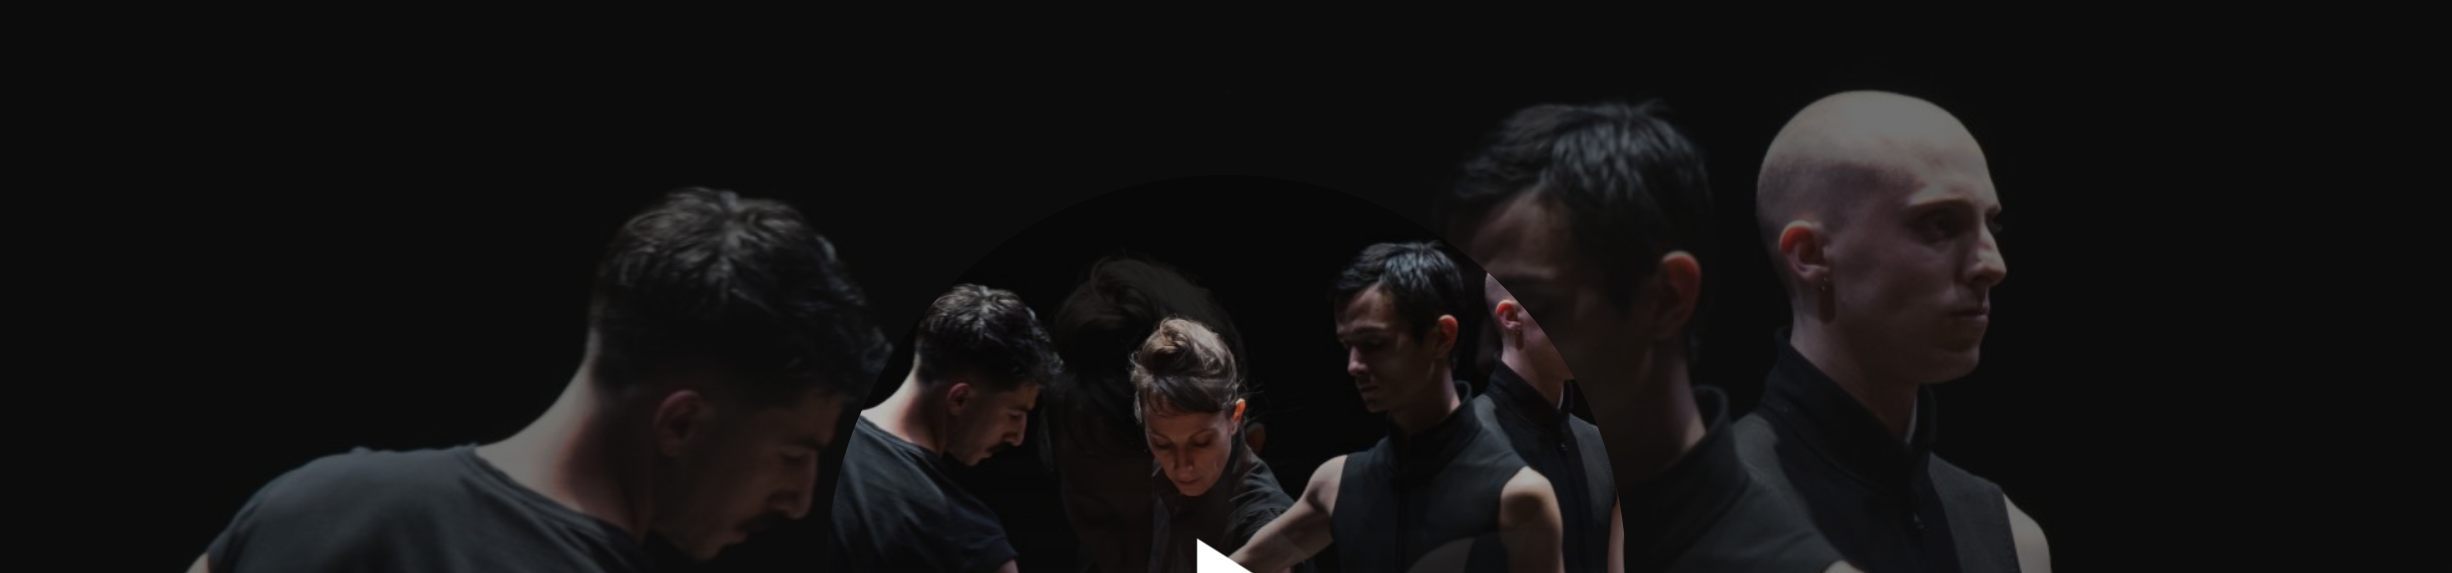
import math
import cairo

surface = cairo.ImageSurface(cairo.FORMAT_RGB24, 2452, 573)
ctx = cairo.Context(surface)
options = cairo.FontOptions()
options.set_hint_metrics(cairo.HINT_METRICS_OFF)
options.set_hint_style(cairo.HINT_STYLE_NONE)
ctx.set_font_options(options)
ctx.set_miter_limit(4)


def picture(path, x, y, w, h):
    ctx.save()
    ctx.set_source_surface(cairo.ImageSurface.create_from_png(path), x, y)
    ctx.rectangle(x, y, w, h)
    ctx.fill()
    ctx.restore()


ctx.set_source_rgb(0.063, 0.063, 0.063)
ctx.paint()
picture("img1.png", 0, 0, 2452, 573)
picture("img2.png", 828, 175, 798, 398)
gradient = cairo.LinearGradient(1226, 175, 1226, 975)
gradient.add_color_stop_rgba(0.33, 0.063, 0.063, 0.063, 0)
gradient.add_color_stop_rgba(0.85, 0.063, 0.063, 0.063, 0.7)
ctx.set_source(gradient)
ctx.new_path()
ctx.move_to(1226, 175)
ctx.curve_to(1442, 175, 1618, 346, 1626, 561)
ctx.line_to(1626, 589)
ctx.curve_to(1618, 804, 1442, 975, 1226, 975)
ctx.curve_to(1005, 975, 826, 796, 826, 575)
ctx.curve_to(826, 354, 1005, 175, 1226, 175)
ctx.close_path()
ctx.fill()
picture("img3.png", 1196, 538, 58, 35)
surface.write_to_png("page.png")
